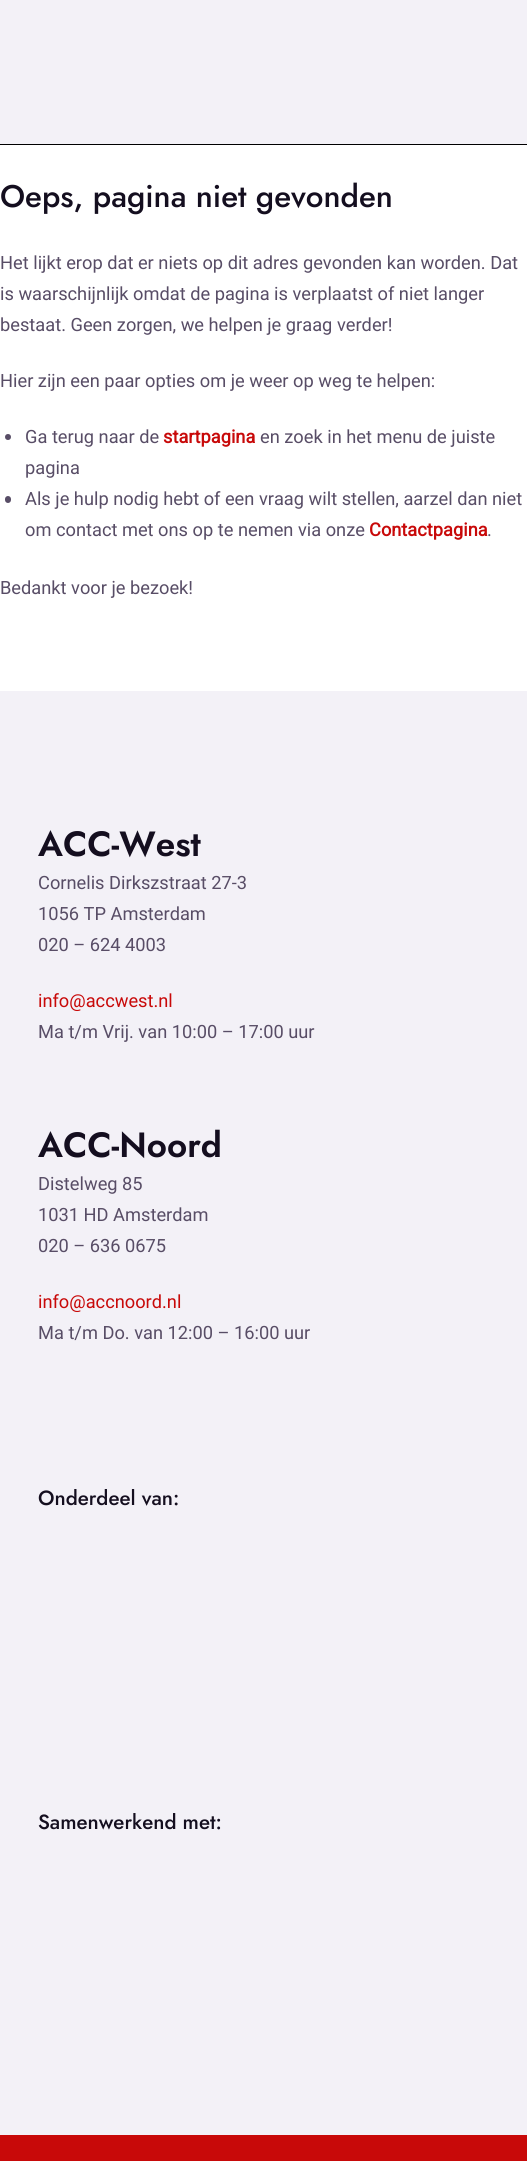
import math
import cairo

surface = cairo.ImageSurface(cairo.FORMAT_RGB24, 527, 2161)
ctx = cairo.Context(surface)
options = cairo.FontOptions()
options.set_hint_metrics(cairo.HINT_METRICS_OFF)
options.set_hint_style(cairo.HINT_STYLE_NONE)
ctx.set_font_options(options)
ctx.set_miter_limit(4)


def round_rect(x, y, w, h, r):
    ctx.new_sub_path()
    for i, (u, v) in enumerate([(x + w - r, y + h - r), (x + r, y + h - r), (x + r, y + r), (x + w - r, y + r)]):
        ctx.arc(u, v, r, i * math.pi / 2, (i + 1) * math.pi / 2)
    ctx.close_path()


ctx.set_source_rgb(1, 1, 1)
ctx.paint()
ctx.set_source_rgb(0.953, 0.945, 0.965)
ctx.rectangle(0, 0, 527, 144)
ctx.fill()
ctx.set_source_rgb(0, 0, 0)
ctx.rectangle(0, 144, 527, 1)
ctx.fill()
ctx.select_font_face("Jost Medium")
ctx.set_font_size(31.25)
ctx.set_source_rgb(0.082, 0.055, 0.122)
ctx.move_to(0, 207)
ctx.show_text("Oeps, pagina niet gevonden")
ctx.select_font_face("Roboto")
ctx.set_font_size(18.25)
ctx.set_source_rgb(0.345, 0.302, 0.4)
ctx.move_to(0, 269)
ctx.show_text("Het lijkt erop dat er niets op dit adres gevonden kan worden. Dat")
ctx.move_to(0, 300)
ctx.show_text("is waarschijnlijk omdat de pagina is verplaatst of niet langer")
ctx.move_to(0, 331)
ctx.show_text("bestaat. Geen zorgen, we helpen je graag verder!")
ctx.move_to(0, 387)
ctx.show_text("Hier zijn een paar opties om je weer op weg te helpen:")
ctx.new_path()
ctx.arc(8, 437, 3, 0, 2 * math.pi)
ctx.fill()
ctx.move_to(25, 443)
ctx.show_text("Ga terug naar de")
ctx.select_font_face("Roboto", cairo.FONT_SLANT_NORMAL, cairo.FONT_WEIGHT_BOLD)
ctx.set_source_rgb(0.784, 0.039, 0.039)
ctx.move_to(163, 443)
ctx.show_text("startpagina")
ctx.select_font_face("Roboto")
ctx.set_source_rgb(0.345, 0.302, 0.4)
ctx.move_to(260, 443)
ctx.show_text("en zoek in het menu de juiste")
ctx.move_to(25, 474)
ctx.show_text("pagina")
round_rect(5, 496, 6, 7, 3)
ctx.fill()
ctx.move_to(25, 505)
ctx.show_text("Als je hulp nodig hebt of een vraag wilt stellen, aarzel dan niet")
ctx.move_to(25, 536)
ctx.show_text("om contact met ons op te nemen via onze")
ctx.select_font_face("Roboto", cairo.FONT_SLANT_NORMAL, cairo.FONT_WEIGHT_BOLD)
ctx.set_source_rgb(0.784, 0.039, 0.039)
ctx.move_to(369, 536)
ctx.show_text("Contactpagina")
ctx.select_font_face("Roboto")
ctx.set_source_rgb(0.345, 0.302, 0.4)
ctx.move_to(487, 536)
ctx.show_text(".")
ctx.move_to(0, 594)
ctx.show_text("Bedankt voor je bezoek!")
ctx.set_source_rgb(0.953, 0.945, 0.965)
ctx.rectangle(0, 691, 527, 1444)
ctx.fill()
ctx.select_font_face("Jost SemiBold")
ctx.set_font_size(35)
ctx.set_source_rgb(0.082, 0.055, 0.122)
ctx.move_to(38, 856)
ctx.show_text("ACC-West")
ctx.select_font_face("Roboto")
ctx.set_font_size(18.25)
ctx.set_source_rgb(0.345, 0.302, 0.4)
ctx.move_to(38, 889)
ctx.show_text("Cornelis Dirkszstraat 27-3")
ctx.move_to(38, 920)
ctx.show_text("1056 TP Amsterdam")
ctx.move_to(38, 951)
ctx.show_text("020 – 624 4003")
ctx.set_source_rgb(0.784, 0.039, 0.039)
ctx.move_to(38, 1007)
ctx.show_text("info@accwest.nl")
ctx.set_source_rgb(0.345, 0.302, 0.4)
ctx.move_to(38, 1038)
ctx.show_text("Ma t/m Vrij. van 10:00 – 17:00 uur")
ctx.select_font_face("Jost SemiBold")
ctx.set_font_size(35)
ctx.set_source_rgb(0.082, 0.055, 0.122)
ctx.move_to(38, 1157)
ctx.show_text("ACC-Noord")
ctx.select_font_face("Roboto")
ctx.set_font_size(18.25)
ctx.set_source_rgb(0.345, 0.302, 0.4)
ctx.move_to(38, 1190)
ctx.show_text("Distelweg 85")
ctx.move_to(38, 1221)
ctx.show_text("1031 HD Amsterdam")
ctx.move_to(38, 1252)
ctx.show_text("020 – 636 0675")
ctx.set_source_rgb(0.784, 0.039, 0.039)
ctx.move_to(38, 1308)
ctx.show_text("info@accnoord.nl")
ctx.set_source_rgb(0.345, 0.302, 0.4)
ctx.move_to(38, 1339)
ctx.show_text("Ma t/m Do. van 12:00 – 16:00 uur")
ctx.select_font_face("Jost Medium")
ctx.set_font_size(20.5)
ctx.set_source_rgb(0.082, 0.055, 0.122)
ctx.move_to(38, 1505)
ctx.show_text("Onderdeel van:")
ctx.move_to(38, 1829)
ctx.show_text("Samenwerkend met:")
ctx.set_source_rgb(0.784, 0.039, 0.039)
ctx.rectangle(0, 2135, 527, 26)
ctx.fill()
surface.write_to_png("page.png")
